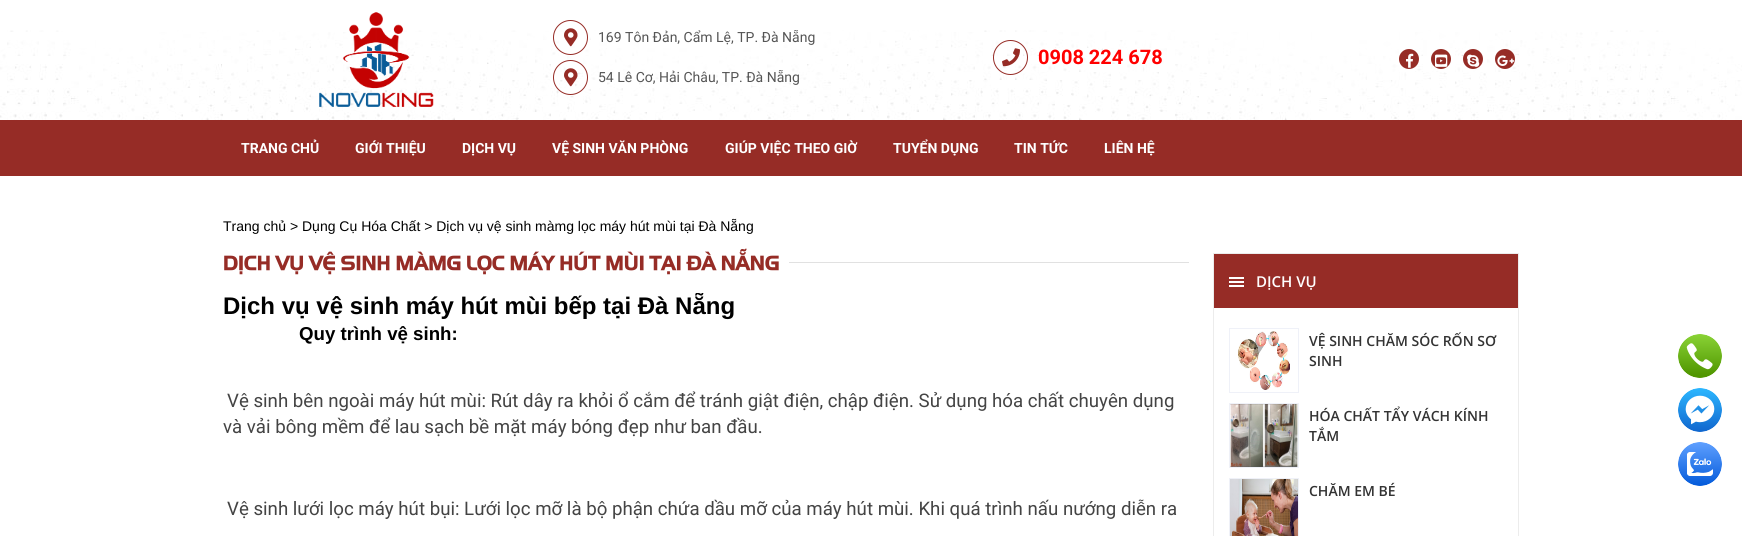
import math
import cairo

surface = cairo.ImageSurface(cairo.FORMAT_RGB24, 1742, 536)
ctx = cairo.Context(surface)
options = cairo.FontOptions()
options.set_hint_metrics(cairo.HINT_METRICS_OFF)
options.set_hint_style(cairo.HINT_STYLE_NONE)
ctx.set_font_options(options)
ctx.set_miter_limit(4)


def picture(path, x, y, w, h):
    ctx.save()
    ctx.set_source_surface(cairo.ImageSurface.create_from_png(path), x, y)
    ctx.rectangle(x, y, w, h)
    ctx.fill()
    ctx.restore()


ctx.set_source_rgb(1, 1, 1)
ctx.paint()
picture("img1.png", 0, 30, 1742, 90)
picture("img2.png", 319, 12, 115, 95)
ctx.arc(570.5, 37.5, 17, 0, 2 * math.pi)
ctx.set_source_rgb(0.588, 0.173, 0.149)
ctx.set_line_width(1)
ctx.stroke()
picture("img3.png", 564, 28, 14, 19)
ctx.select_font_face("Roboto")
ctx.set_font_size(14)
ctx.set_source_rgb(0.333, 0.333, 0.333)
ctx.move_to(598, 42)
ctx.show_text("169 Tôn Đản, Cẩm Lệ, TP. Đà Nẵng")
ctx.new_path()
ctx.arc(570.5, 77.5, 17, 0, 2 * math.pi)
ctx.set_source_rgb(0.588, 0.173, 0.149)
ctx.stroke()
picture("img4.png", 564, 68, 14, 19)
ctx.set_source_rgb(0.333, 0.333, 0.333)
ctx.move_to(598, 82)
ctx.show_text("54 Lê Cơ, Hải Châu, TP. Đà Nẵng")
ctx.new_path()
ctx.arc(1010.5, 57.5, 17, 0, 2 * math.pi)
ctx.set_source_rgb(0.588, 0.173, 0.149)
ctx.stroke()
picture("img5.png", 1002, 48, 18, 19)
ctx.select_font_face("Roboto", cairo.FONT_SLANT_NORMAL, cairo.FONT_WEIGHT_BOLD)
ctx.set_font_size(20)
ctx.set_source_rgb(1, 0, 0)
ctx.move_to(1038, 64)
ctx.show_text("0908 224 678")
ctx.set_source_rgb(0.588, 0.173, 0.149)
ctx.new_path()
ctx.arc(1409, 59, 10, 0, 2 * math.pi)
ctx.fill()
picture("img6.png", 1406, 53, 8, 15)
ctx.arc(1441, 59, 10, 0, 2 * math.pi)
ctx.fill()
picture("img7.png", 1435, 54, 13, 13)
ctx.arc(1473, 59, 10, 0, 2 * math.pi)
ctx.fill()
picture("img8.png", 1467, 54, 13, 13)
ctx.arc(1505, 59, 10, 0, 2 * math.pi)
ctx.fill()
picture("img9.png", 1497, 55, 18, 11)
ctx.rectangle(0, 120, 1742, 56)
ctx.fill()
ctx.set_font_size(14)
ctx.set_source_rgb(1, 1, 1)
ctx.move_to(241, 153)
ctx.show_text("TRANG CHỦ")
ctx.move_to(355, 153)
ctx.show_text("GIỚI THIỆU")
ctx.move_to(462, 153)
ctx.show_text("DỊCH VỤ")
ctx.move_to(552, 153)
ctx.show_text("VỆ SINH VĂN PHÒNG")
ctx.move_to(725, 153)
ctx.show_text("GIÚP VIỆC THEO GIỜ")
ctx.move_to(893, 153)
ctx.show_text("TUYỂN DỤNG")
ctx.move_to(1014, 153)
ctx.show_text("TIN TỨC")
ctx.move_to(1104, 153)
ctx.show_text("LIÊN HỆ")
ctx.select_font_face("Liberation Sans")
ctx.set_source_rgb(0, 0, 0)
ctx.move_to(223, 231)
ctx.show_text("Trang chủ > Dụng Cụ Hóa Chất > Dịch vụ vệ sinh màmg lọc máy hút mùi tại Đà Nẵng")
ctx.select_font_face("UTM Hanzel")
ctx.set_font_size(20)
ctx.set_source_rgb(0.588, 0.173, 0.149)
ctx.move_to(223, 270)
ctx.show_text("DỊCH VỤ VỆ SINH MÀMG LỌC MÁY HÚT MÙI TẠI ĐÀ NẴNG")
ctx.set_source_rgb(0.882, 0.882, 0.882)
ctx.rectangle(789, 262, 400, 1)
ctx.fill()
ctx.save()
ctx.rectangle(223, 293, 966, 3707)
ctx.clip()
ctx.select_font_face("Liberation Sans", cairo.FONT_SLANT_NORMAL, cairo.FONT_WEIGHT_BOLD)
ctx.set_font_size(24)
ctx.set_source_rgb(0, 0, 0)
ctx.move_to(223, 314)
ctx.show_text("Dịch vụ vệ sinh máy hút mùi bếp tại Đà Nẵng")
ctx.restore()
ctx.select_font_face("Liberation Sans", cairo.FONT_SLANT_NORMAL, cairo.FONT_WEIGHT_BOLD)
ctx.set_font_size(18.67)
ctx.set_source_rgb(0, 0, 0)
ctx.move_to(299, 340)
ctx.show_text("Quy trình vệ sinh:")
ctx.select_font_face("Roboto")
ctx.set_source_rgb(0.267, 0.267, 0.267)
ctx.move_to(227, 407)
ctx.show_text("Vệ sinh bên ngoài máy hút mùi: Rút dây ra khỏi ổ cắm để tránh giật điện, chập điện. Sử dụng hóa chất chuyên dụng")
ctx.move_to(223, 433)
ctx.show_text("và vải bông mềm để lau sạch bề mặt máy bóng đẹp như ban đầu.")
ctx.move_to(227, 515)
ctx.show_text("Vệ sinh lưới lọc máy hút bụi: Lưới lọc mỡ là bộ phận chứa dầu mỡ của máy hút mùi. Khi quá trình nấu nướng diễn ra")
ctx.rectangle(1213.5, 253.5, 305, 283)
ctx.set_source_rgb(0.922, 0.922, 0.922)
ctx.stroke()
ctx.set_source_rgb(0.588, 0.173, 0.149)
ctx.rectangle(1214, 254, 304, 54)
ctx.fill()
picture("img10.png", 1229, 277, 15, 10)
ctx.select_font_face("Open Sans SemiBold")
ctx.set_font_size(15)
ctx.set_source_rgb(1, 1, 1)
ctx.move_to(1256, 287)
ctx.show_text("DỊCH VỤ")
ctx.rectangle(1229.5, 328.5, 69, 64)
ctx.set_source_rgb(0.937, 0.945, 0.969)
ctx.stroke()
picture("img11.png", 1238, 331, 52, 59)
ctx.set_font_size(14)
ctx.set_source_rgb(0.2, 0.2, 0.2)
ctx.move_to(1309, 346)
ctx.show_text("VỆ SINH CHĂM SÓC RỐN SƠ")
ctx.move_to(1309, 366)
ctx.show_text("SINH")
ctx.rectangle(1229.5, 403.5, 69, 64)
ctx.set_source_rgb(0.937, 0.945, 0.969)
ctx.stroke()
picture("img12.png", 1230, 404, 68, 63)
ctx.set_source_rgb(0.2, 0.2, 0.2)
ctx.move_to(1309, 421)
ctx.show_text("HÓA CHẤT TẨY VÁCH KÍNH")
ctx.move_to(1309, 441)
ctx.show_text("TẮM")
ctx.rectangle(1229.5, 478.5, 69, 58)
ctx.set_source_rgb(0.937, 0.945, 0.969)
ctx.stroke()
picture("img13.png", 1230, 479, 68, 57)
ctx.set_source_rgb(0.2, 0.2, 0.2)
ctx.move_to(1309, 496)
ctx.show_text("CHĂM EM BÉ")
picture("img14.png", 1678, 334, 44, 44)
picture("img15.png", 1678, 388, 44, 44)
picture("img16.png", 1678, 442, 44, 44)
surface.write_to_png("page.png")
